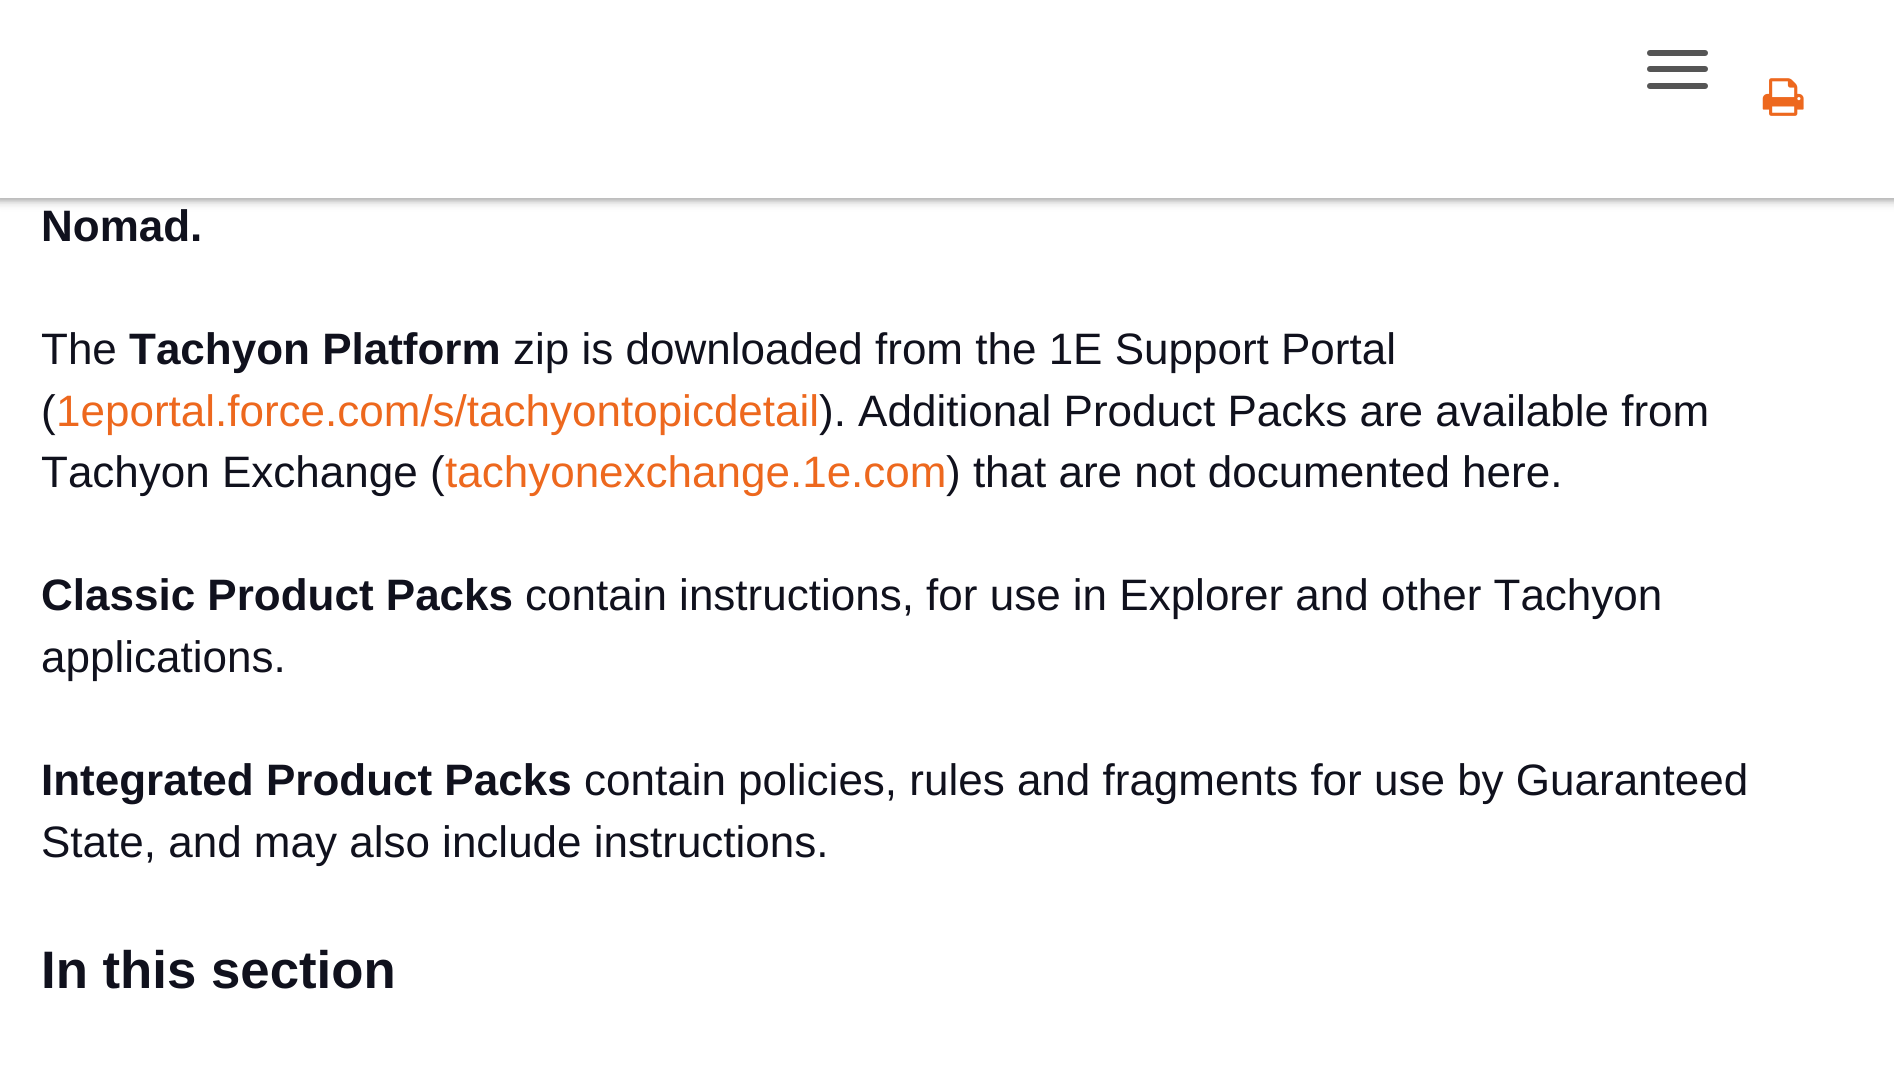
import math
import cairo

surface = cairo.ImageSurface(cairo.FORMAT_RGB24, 1894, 1087)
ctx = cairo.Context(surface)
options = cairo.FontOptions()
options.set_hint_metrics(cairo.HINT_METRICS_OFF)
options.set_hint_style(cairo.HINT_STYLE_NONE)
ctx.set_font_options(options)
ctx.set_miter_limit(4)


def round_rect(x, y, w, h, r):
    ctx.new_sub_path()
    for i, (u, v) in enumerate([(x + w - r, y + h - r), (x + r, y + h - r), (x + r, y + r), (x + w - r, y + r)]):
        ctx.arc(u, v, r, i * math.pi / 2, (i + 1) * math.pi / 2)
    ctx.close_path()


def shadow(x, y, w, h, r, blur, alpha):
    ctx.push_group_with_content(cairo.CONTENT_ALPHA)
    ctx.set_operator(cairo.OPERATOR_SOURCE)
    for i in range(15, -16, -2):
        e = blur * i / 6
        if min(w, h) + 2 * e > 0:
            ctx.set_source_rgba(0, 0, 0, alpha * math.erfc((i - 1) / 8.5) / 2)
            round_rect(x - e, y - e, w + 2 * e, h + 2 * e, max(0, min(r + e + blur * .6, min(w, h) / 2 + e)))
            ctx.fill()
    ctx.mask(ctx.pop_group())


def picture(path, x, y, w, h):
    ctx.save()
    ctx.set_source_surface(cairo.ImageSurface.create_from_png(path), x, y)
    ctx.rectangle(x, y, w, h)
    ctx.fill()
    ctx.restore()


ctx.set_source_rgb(1, 1, 1)
ctx.paint()
ctx.set_source_rgb(0, 0, 0)
shadow(-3, -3, 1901, 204, 0, 7, 0.08)
shadow(-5, -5, 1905, 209, 0, 3, 0.1)
shadow(-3, -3, 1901, 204, 0, 1.5, 0.14)
ctx.set_source_rgb(1, 1, 1)
ctx.rectangle(0, 0, 1894, 198)
ctx.fill()
ctx.set_source_rgb(0.333, 0.333, 0.333)
round_rect(1647, 50, 61, 6, 3)
ctx.fill()
round_rect(1647, 66, 61, 6, 3)
ctx.fill()
round_rect(1647, 83, 61, 6, 3)
ctx.fill()
picture("img1.png", 1762, 78, 42, 38)
ctx.select_font_face("Liberation Sans", cairo.FONT_SLANT_NORMAL, cairo.FONT_WEIGHT_BOLD)
ctx.set_font_size(44)
ctx.set_source_rgb(0.063, 0.067, 0.114)
ctx.move_to(41, 241)
ctx.show_text("Nomad.")
ctx.select_font_face("Liberation Sans")
ctx.move_to(41, 364)
ctx.show_text("The")
ctx.select_font_face("Liberation Sans", cairo.FONT_SLANT_NORMAL, cairo.FONT_WEIGHT_BOLD)
ctx.move_to(129, 364)
ctx.show_text("Tachyon Platform")
ctx.select_font_face("Liberation Sans")
ctx.move_to(513, 364)
ctx.show_text("zip is downloaded from the 1E Support Portal")
ctx.move_to(41, 426)
ctx.show_text("(")
ctx.set_source_rgb(0.929, 0.408, 0.118)
ctx.move_to(56, 426)
ctx.show_text("1eportal.force.com/s/tachyontopicdetail")
ctx.set_source_rgb(0.063, 0.067, 0.114)
ctx.move_to(819, 426)
ctx.show_text("). Additional Product Packs are available from")
ctx.move_to(41, 487)
ctx.show_text("Tachyon Exchange (")
ctx.set_source_rgb(0.929, 0.408, 0.118)
ctx.move_to(445, 487)
ctx.show_text("tachyonexchange.1e.com")
ctx.set_source_rgb(0.063, 0.067, 0.114)
ctx.move_to(946, 487)
ctx.show_text(") that are not documented here.")
ctx.select_font_face("Liberation Sans", cairo.FONT_SLANT_NORMAL, cairo.FONT_WEIGHT_BOLD)
ctx.move_to(41, 610)
ctx.show_text("Classic Product Packs")
ctx.select_font_face("Liberation Sans")
ctx.move_to(525, 610)
ctx.show_text("contain instructions, for use in Explorer and other Tachyon")
ctx.move_to(41, 672)
ctx.show_text("applications.")
ctx.select_font_face("Liberation Sans", cairo.FONT_SLANT_NORMAL, cairo.FONT_WEIGHT_BOLD)
ctx.move_to(41, 795)
ctx.show_text("Integrated Product Packs")
ctx.select_font_face("Liberation Sans")
ctx.move_to(584, 795)
ctx.show_text("contain policies, rules and fragments for use by Guaranteed")
ctx.move_to(41, 857)
ctx.show_text("State, and may also include instructions.")
ctx.select_font_face("Liberation Sans", cairo.FONT_SLANT_NORMAL, cairo.FONT_WEIGHT_BOLD)
ctx.set_font_size(52.75)
ctx.move_to(41, 988)
ctx.show_text("In this section")
surface.write_to_png("page.png")
